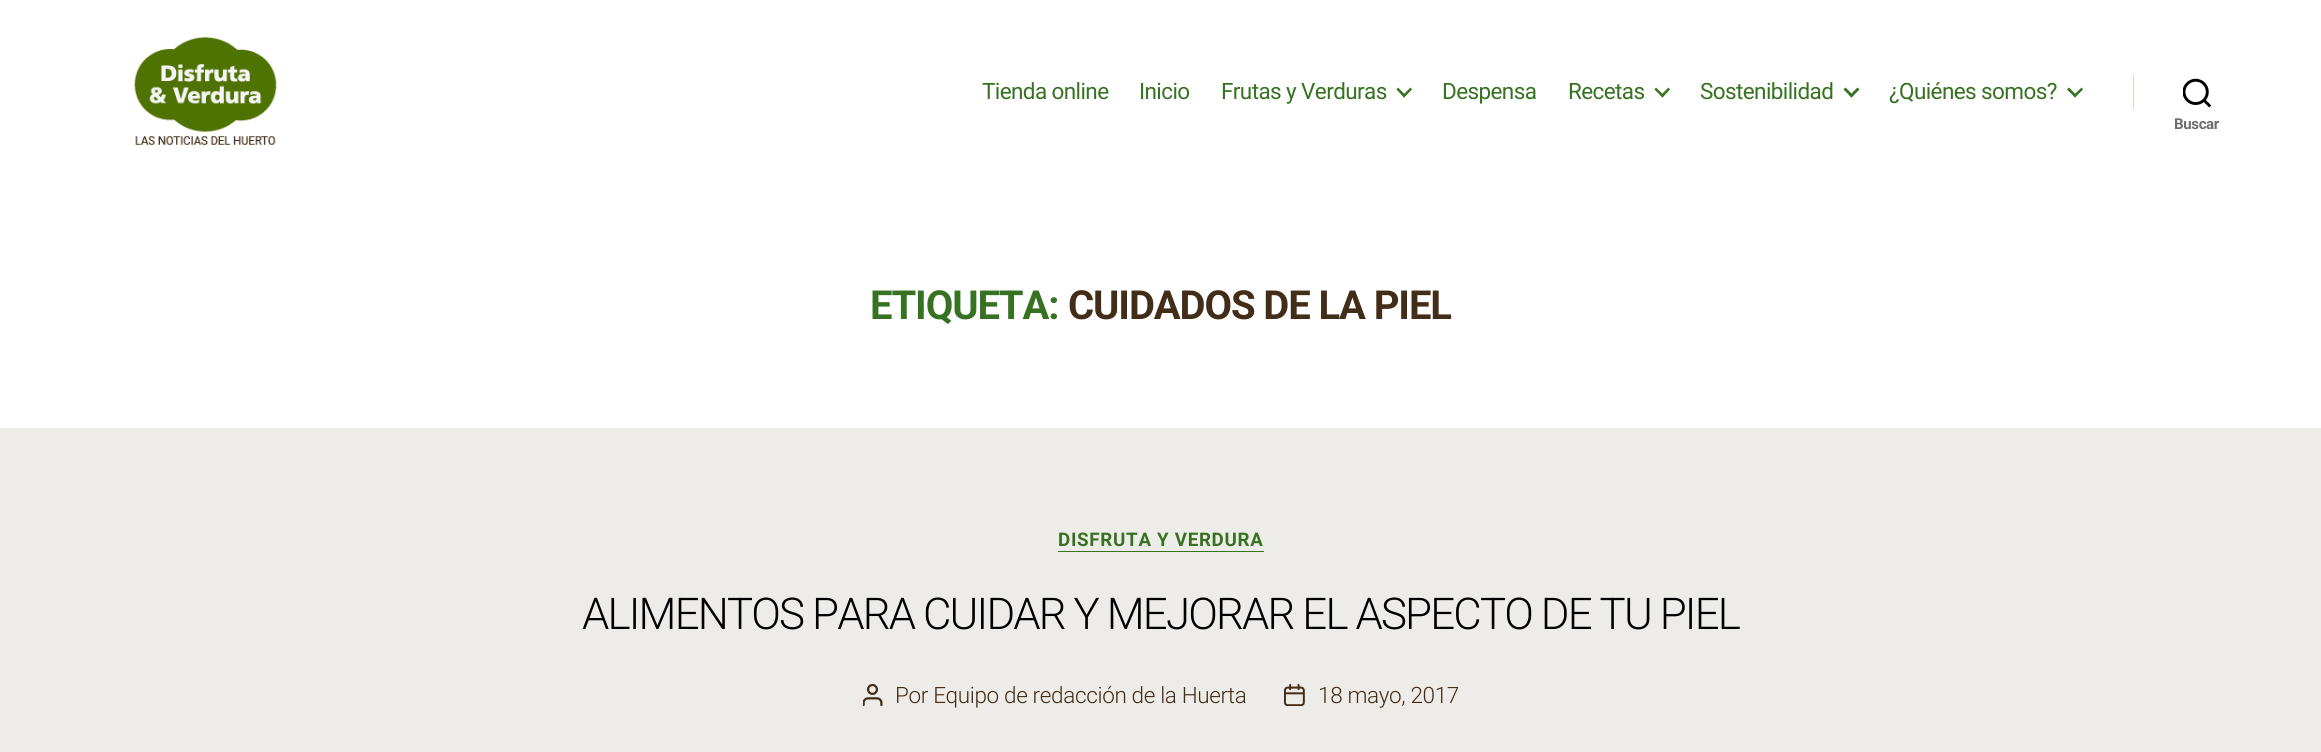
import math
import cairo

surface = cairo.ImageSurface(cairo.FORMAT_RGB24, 2321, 752)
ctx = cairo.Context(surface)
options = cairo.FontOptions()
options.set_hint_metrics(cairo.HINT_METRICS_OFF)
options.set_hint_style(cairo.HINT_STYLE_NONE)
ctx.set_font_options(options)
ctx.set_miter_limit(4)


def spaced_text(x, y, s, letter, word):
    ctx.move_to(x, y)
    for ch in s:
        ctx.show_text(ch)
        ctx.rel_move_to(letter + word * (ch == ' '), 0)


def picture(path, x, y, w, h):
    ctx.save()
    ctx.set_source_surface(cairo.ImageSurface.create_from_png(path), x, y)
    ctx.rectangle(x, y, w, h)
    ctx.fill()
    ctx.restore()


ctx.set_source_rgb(0.929, 0.922, 0.91)
ctx.paint()
ctx.set_source_rgb(1, 1, 1)
ctx.rectangle(0, 0, 2321, 428)
ctx.fill()
picture("img1.png", 134, 36, 143, 109)
ctx.select_font_face("Roboto")
ctx.set_font_size(22.5)
ctx.set_source_rgb(0.212, 0.447, 0.129)
spaced_text(982, 99, "Tienda online", -0.6, 0)
spaced_text(1139, 99, "Inicio", -0.6, 0)
spaced_text(1221, 99, "Frutas y Verduras", -0.6, 0)
ctx.new_path()
ctx.move_to(1396.5, 89.5)
ctx.line_to(1398, 87.5)
ctx.line_to(1406, 95.5)
ctx.line_to(1404, 97.5)
ctx.close_path()
ctx.fill()
ctx.new_path()
ctx.move_to(1402.5, 95.5)
ctx.line_to(1410.5, 87.5)
ctx.line_to(1412, 89.5)
ctx.line_to(1404, 97.5)
ctx.close_path()
ctx.fill()
spaced_text(1442, 99, "Despensa", -0.6, 0)
spaced_text(1568, 99, "Recetas", -0.6, 0)
ctx.new_path()
ctx.move_to(1654.5, 89.5)
ctx.line_to(1656, 87.5)
ctx.line_to(1664, 95.5)
ctx.line_to(1662.5, 97.5)
ctx.close_path()
ctx.fill()
ctx.new_path()
ctx.move_to(1660.5, 95.5)
ctx.line_to(1668.5, 87.5)
ctx.line_to(1670, 89.5)
ctx.line_to(1662.5, 97.5)
ctx.close_path()
ctx.fill()
spaced_text(1700, 99, "Sostenibilidad", -0.6, 0)
ctx.new_path()
ctx.move_to(1843.5, 89.5)
ctx.line_to(1845.5, 87.5)
ctx.line_to(1853.5, 95.5)
ctx.line_to(1851.5, 97.5)
ctx.close_path()
ctx.fill()
ctx.new_path()
ctx.move_to(1849.5, 95.5)
ctx.line_to(1857.5, 87.5)
ctx.line_to(1859.5, 89.5)
ctx.line_to(1851.5, 97.5)
ctx.close_path()
ctx.fill()
spaced_text(1889, 99, "¿Quiénes somos?", -0.6, 0)
ctx.new_path()
ctx.move_to(2067, 89.5)
ctx.line_to(2069, 87.5)
ctx.line_to(2077, 95.5)
ctx.line_to(2075, 97.5)
ctx.close_path()
ctx.fill()
ctx.new_path()
ctx.move_to(2073.5, 95.5)
ctx.line_to(2081.5, 87.5)
ctx.line_to(2083, 89.5)
ctx.line_to(2075, 97.5)
ctx.close_path()
ctx.fill()
ctx.set_source_rgb(0.863, 0.843, 0.792)
ctx.rectangle(2133, 75, 1, 34)
ctx.fill()
picture("img2.png", 2183, 78, 28, 30)
ctx.select_font_face("Roboto", cairo.FONT_SLANT_NORMAL, cairo.FONT_WEIGHT_BOLD)
ctx.set_font_size(15)
ctx.set_source_rgb(0.427, 0.427, 0.427)
spaced_text(2174, 129, "Buscar", -0.35, 0)
ctx.set_font_size(40)
ctx.set_source_rgb(0.212, 0.447, 0.129)
spaced_text(870, 319, "ETIQUETA:", -1.1, 0)
ctx.set_source_rgb(0.259, 0.176, 0.094)
spaced_text(1068, 319, "CUIDADOS DE LA PIEL", -1.1, 0)
ctx.set_source_rgb(0.212, 0.447, 0.129)
ctx.rectangle(1058, 551, 206, 1)
ctx.fill()
ctx.set_font_size(18.75)
spaced_text(1058, 546, "DISFRUTA Y VERDURA", 0.7, 0)
ctx.select_font_face("Roboto Light")
ctx.set_font_size(43.75)
ctx.set_source_rgb(0, 0, 0)
spaced_text(582, 629, "ALIMENTOS PARA CUIDAR Y MEJORAR EL ASPECTO DE TU PIEL", -1.82, 0)
picture("img3.png", 863, 684, 20, 22)
ctx.set_font_size(22.5)
ctx.set_source_rgb(0.259, 0.176, 0.094)
spaced_text(895, 703, "Por Equipo de redacción de la Huerta", -0.35, 0)
picture("img4.png", 1284, 684, 21, 22)
spaced_text(1318, 703, "18 mayo, 2017", -0.35, 0)
surface.write_to_png("page.png")
